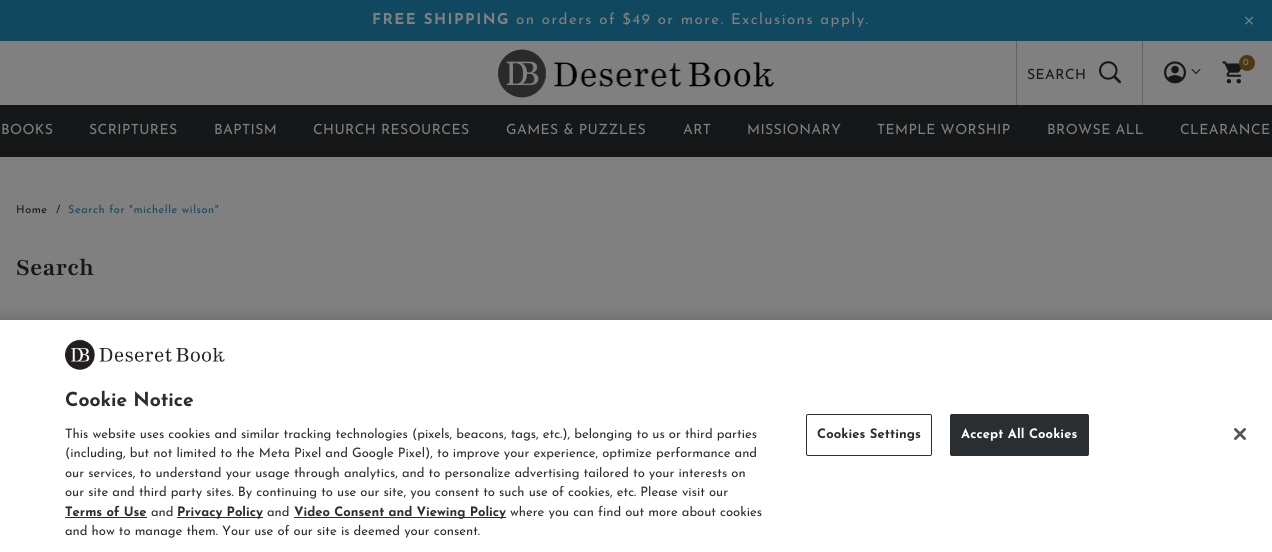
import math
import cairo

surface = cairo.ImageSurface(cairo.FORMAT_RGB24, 1272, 552)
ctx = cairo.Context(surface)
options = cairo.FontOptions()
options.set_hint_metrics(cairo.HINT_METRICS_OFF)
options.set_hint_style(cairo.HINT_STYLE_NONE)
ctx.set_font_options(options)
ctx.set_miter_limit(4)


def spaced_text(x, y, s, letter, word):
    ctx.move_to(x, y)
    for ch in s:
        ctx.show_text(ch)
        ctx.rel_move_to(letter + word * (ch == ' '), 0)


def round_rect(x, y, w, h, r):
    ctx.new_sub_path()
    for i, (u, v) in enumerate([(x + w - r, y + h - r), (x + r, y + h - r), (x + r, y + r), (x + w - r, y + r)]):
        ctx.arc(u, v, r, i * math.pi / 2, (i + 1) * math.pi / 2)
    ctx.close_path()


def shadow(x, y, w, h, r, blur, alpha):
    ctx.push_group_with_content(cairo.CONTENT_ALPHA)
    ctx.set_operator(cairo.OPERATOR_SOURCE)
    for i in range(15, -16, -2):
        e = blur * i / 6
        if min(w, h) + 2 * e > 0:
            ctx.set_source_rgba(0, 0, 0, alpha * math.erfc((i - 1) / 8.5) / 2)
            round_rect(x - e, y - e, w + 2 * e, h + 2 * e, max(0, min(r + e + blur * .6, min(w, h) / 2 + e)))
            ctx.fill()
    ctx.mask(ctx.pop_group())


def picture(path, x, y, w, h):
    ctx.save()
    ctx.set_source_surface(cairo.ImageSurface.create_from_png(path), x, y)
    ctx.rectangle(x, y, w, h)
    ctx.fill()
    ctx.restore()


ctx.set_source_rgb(0.502, 0.502, 0.502)
ctx.paint()
ctx.set_source_rgb(0.063, 0.282, 0.373)
ctx.rectangle(0, 0, 1272, 41)
ctx.fill()
ctx.select_font_face("Josefin Sans", cairo.FONT_SLANT_NORMAL, cairo.FONT_WEIGHT_BOLD)
ctx.set_font_size(15)
ctx.set_source_rgb(0.502, 0.502, 0.502)
spaced_text(372, 24, "FREE SHIPPING", 1.5, 0)
ctx.select_font_face("Josefin Sans")
spaced_text(516, 24, "on orders of $49 or more. Exclusions apply.", 1.5, 0)
picture("img1.png", 1245, 16, 8, 9)
picture("img2.png", 498, 49, 276, 49)
ctx.set_source_rgb(0.388, 0.388, 0.388)
ctx.rectangle(1142, 41, 1, 64)
ctx.fill()
ctx.rectangle(1016, 41, 1, 64)
ctx.fill()
ctx.set_font_size(14)
ctx.set_source_rgb(0.086, 0.09, 0.094)
spaced_text(1027, 79, "SEARCH", 0.4, 0)
picture("img3.png", 1099, 61, 22, 23)
picture("img4.png", 1164, 61, 22, 23)
picture("img5.png", 1191, 69, 10, 6)
picture("img6.png", 1222, 61, 20, 23)
ctx.set_source_rgb(0.31, 0.216, 0.063)
ctx.arc(1247, 63, 8, 0, 2 * math.pi)
ctx.fill()
ctx.set_font_size(9)
ctx.set_source_rgb(0.502, 0.502, 0.502)
spaced_text(1243, 65, "0", 2, 0)
ctx.set_source_rgb(0.086, 0.09, 0.094)
ctx.rectangle(0, 105, 1272, 52)
ctx.fill()
ctx.set_font_size(14)
ctx.set_source_rgb(0.502, 0.502, 0.502)
spaced_text(1, 134, "BOOKS", 0.4, 0)
spaced_text(89, 134, "SCRIPTURES", 0.4, 0)
spaced_text(214, 134, "BAPTISM", 0.4, 0)
spaced_text(313, 134, "CHURCH RESOURCES", 0.4, 0)
spaced_text(506, 134, "GAMES & PUZZLES", 0.4, 0)
spaced_text(683, 134, "ART", 0.4, 0)
spaced_text(747, 134, "MISSIONARY", 0.4, 0)
spaced_text(877, 134, "TEMPLE WORSHIP", 0.4, 0)
spaced_text(1047, 134, "BROWSE ALL", 0.4, 0)
spaced_text(1180, 134, "CLEARANCE", 0.4, 0)
ctx.set_font_size(11)
ctx.set_source_rgb(0.086, 0.09, 0.094)
spaced_text(16, 213, "Home", 0.55, 0)
spaced_text(56, 213, "/", 0.55, 0)
ctx.set_source_rgb(0.063, 0.282, 0.373)
spaced_text(68, 213, "Search for \"michelle wilson\"", 0.55, 0)
ctx.select_font_face("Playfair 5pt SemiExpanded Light", cairo.FONT_SLANT_NORMAL, cairo.FONT_WEIGHT_BOLD)
ctx.set_font_size(26)
ctx.set_source_rgb(0.086, 0.09, 0.094)
spaced_text(16, 275, "Search", 0.25, 0)
ctx.set_source_rgb(0, 0, 0)
shadow(0, 320, 1272, 232, 0, 9, 0.2)
ctx.set_source_rgb(1, 1, 1)
ctx.rectangle(0, 320, 1272, 232)
ctx.fill()
picture("img7.png", 65, 339, 160, 31)
ctx.select_font_face("Josefin Sans", cairo.FONT_SLANT_NORMAL, cairo.FONT_WEIGHT_BOLD)
ctx.set_font_size(19.25)
ctx.set_source_rgb(0.169, 0.18, 0.188)
ctx.move_to(65, 406)
ctx.show_text("Cookie Notice")
ctx.select_font_face("Josefin Sans")
ctx.set_font_size(13)
ctx.move_to(65, 438)
ctx.show_text("This website uses cookies and similar tracking technologies (pixels, beacons, tags, etc.), belonging to us or third parties")
ctx.move_to(65, 457)
ctx.show_text("(including, but not limited to the Meta Pixel and Google Pixel), to improve your experience, optimize performance and")
ctx.move_to(65, 477)
ctx.show_text("our services, to understand your usage through analytics, and to personalize advertising tailored to your interests on")
ctx.move_to(65, 496)
ctx.show_text("our site and third party sites. By continuing to use our site, you consent to such use of cookies, etc. Please visit our")
ctx.select_font_face("Josefin Sans", cairo.FONT_SLANT_NORMAL, cairo.FONT_WEIGHT_BOLD)
ctx.move_to(65, 516)
ctx.show_text("Terms of Use")
ctx.rectangle(65, 517, 82, 1)
ctx.fill()
ctx.select_font_face("Josefin Sans")
ctx.move_to(151, 516)
ctx.show_text("and")
ctx.rectangle(177, 517, 86, 1)
ctx.fill()
ctx.select_font_face("Josefin Sans", cairo.FONT_SLANT_NORMAL, cairo.FONT_WEIGHT_BOLD)
ctx.move_to(177, 516)
ctx.show_text("Privacy Policy")
ctx.select_font_face("Josefin Sans")
ctx.move_to(267, 516)
ctx.show_text("and")
ctx.rectangle(294, 517, 212, 1)
ctx.fill()
ctx.select_font_face("Josefin Sans", cairo.FONT_SLANT_NORMAL, cairo.FONT_WEIGHT_BOLD)
ctx.move_to(294, 516)
ctx.show_text("Video Consent and Viewing Policy")
ctx.select_font_face("Josefin Sans")
ctx.move_to(510, 516)
ctx.show_text("where you can find out more about cookies")
ctx.move_to(65, 535)
ctx.show_text("and how to manage them. Your use of our site is deemed your consent.")
round_rect(806.5, 414.5, 125, 41, 1.5)
ctx.set_line_width(1)
ctx.stroke()
ctx.select_font_face("Josefin Sans", cairo.FONT_SLANT_NORMAL, cairo.FONT_WEIGHT_BOLD)
spaced_text(817, 438, "Cookies Settings", 0.1, 0)
round_rect(950.5, 414.5, 138, 41, 1.5)
ctx.fill_preserve()
ctx.stroke()
ctx.set_source_rgb(1, 1, 1)
spaced_text(961, 438, "Accept All Cookies", 0.1, 0)
picture("img8.png", 1234, 428, 12, 12)
surface.write_to_png("page.png")
